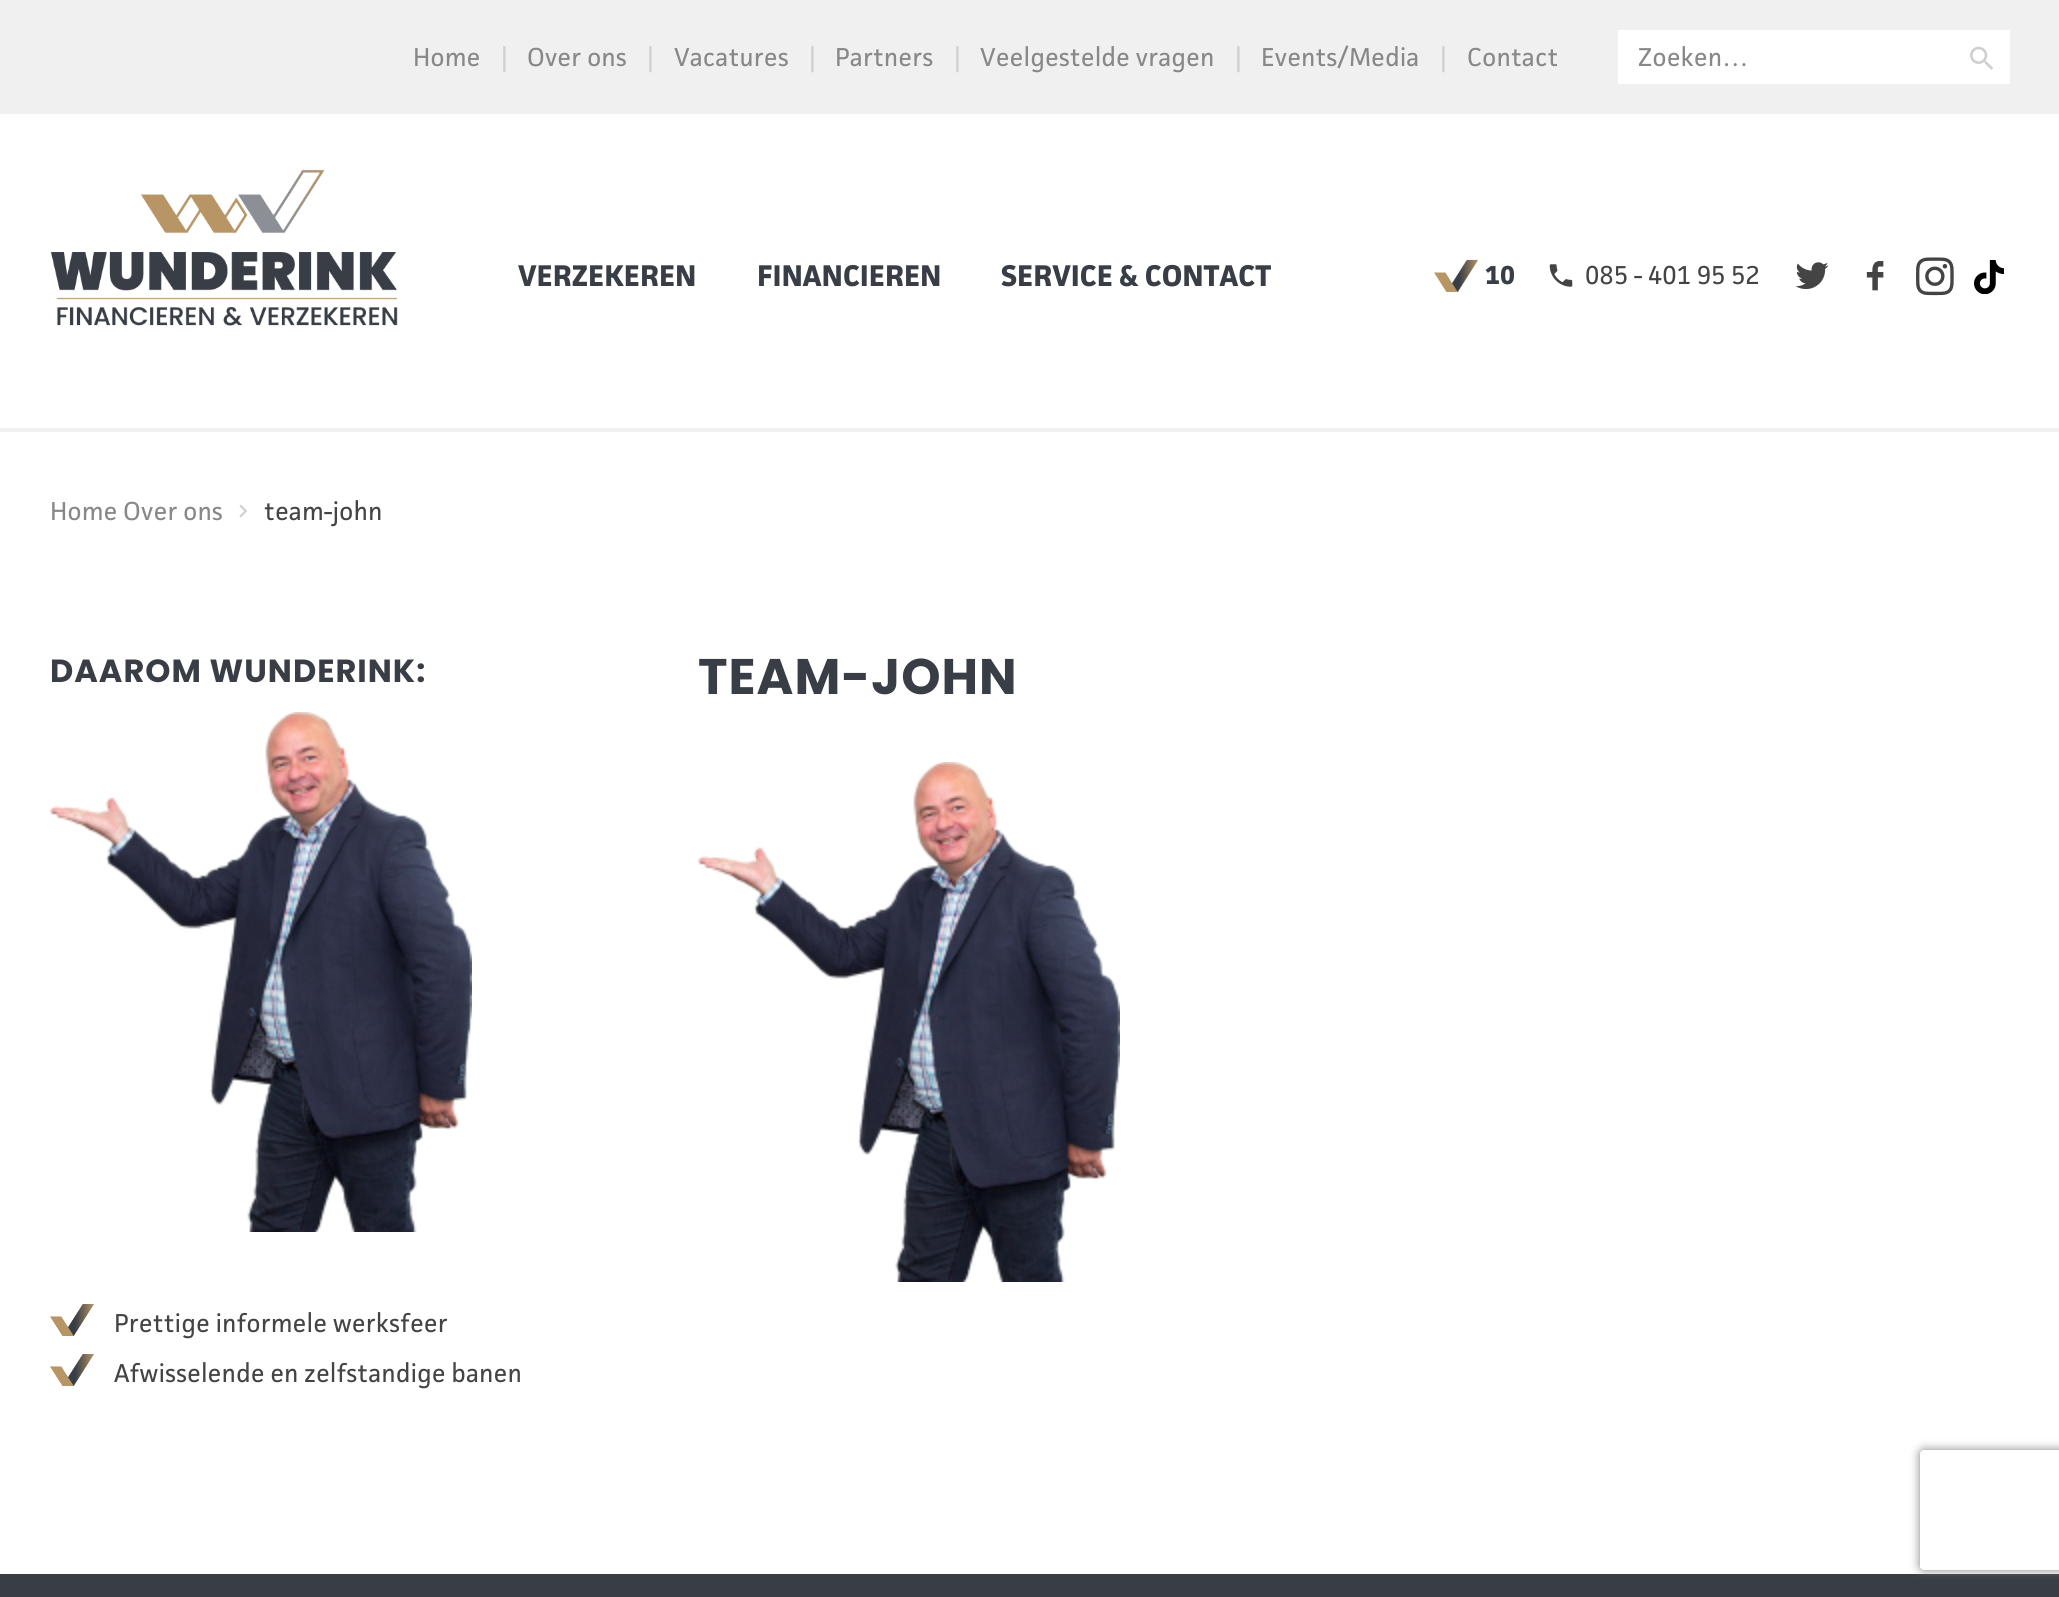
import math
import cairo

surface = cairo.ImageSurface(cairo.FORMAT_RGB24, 2059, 1597)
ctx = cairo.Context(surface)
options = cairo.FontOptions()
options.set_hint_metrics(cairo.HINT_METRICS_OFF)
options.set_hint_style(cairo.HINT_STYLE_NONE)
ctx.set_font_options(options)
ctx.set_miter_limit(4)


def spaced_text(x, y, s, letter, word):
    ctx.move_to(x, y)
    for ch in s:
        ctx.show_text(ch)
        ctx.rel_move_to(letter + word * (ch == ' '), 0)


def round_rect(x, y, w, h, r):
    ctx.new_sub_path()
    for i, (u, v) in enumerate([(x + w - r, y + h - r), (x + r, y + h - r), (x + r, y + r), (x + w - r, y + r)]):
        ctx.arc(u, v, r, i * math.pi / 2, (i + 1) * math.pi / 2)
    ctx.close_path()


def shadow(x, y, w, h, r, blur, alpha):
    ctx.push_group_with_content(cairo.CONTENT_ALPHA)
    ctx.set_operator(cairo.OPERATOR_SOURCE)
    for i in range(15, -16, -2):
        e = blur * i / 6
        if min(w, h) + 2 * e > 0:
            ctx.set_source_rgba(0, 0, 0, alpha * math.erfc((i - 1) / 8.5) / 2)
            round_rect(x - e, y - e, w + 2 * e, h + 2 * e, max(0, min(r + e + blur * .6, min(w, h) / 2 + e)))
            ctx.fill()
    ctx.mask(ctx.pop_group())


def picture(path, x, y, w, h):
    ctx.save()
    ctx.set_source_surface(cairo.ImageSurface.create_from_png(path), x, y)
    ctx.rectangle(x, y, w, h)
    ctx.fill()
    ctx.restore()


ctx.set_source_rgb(1, 1, 1)
ctx.paint()
ctx.set_source_rgb(0.941, 0.941, 0.941)
ctx.rectangle(0, 0, 2059, 114)
ctx.fill()
ctx.select_font_face("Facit")
ctx.set_font_size(26)
ctx.set_source_rgb(0.533, 0.533, 0.533)
ctx.move_to(413, 66)
ctx.show_text("Home")
ctx.set_source_rgb(0.816, 0.816, 0.816)
ctx.move_to(501, 66)
ctx.show_text("|")
ctx.set_source_rgb(0.533, 0.533, 0.533)
ctx.move_to(527, 66)
ctx.show_text("Over ons")
ctx.set_source_rgb(0.816, 0.816, 0.816)
ctx.move_to(647, 66)
ctx.show_text("|")
ctx.set_source_rgb(0.533, 0.533, 0.533)
ctx.move_to(674, 66)
ctx.show_text("Vacatures")
ctx.set_source_rgb(0.816, 0.816, 0.816)
ctx.move_to(809, 66)
ctx.show_text("|")
ctx.set_source_rgb(0.533, 0.533, 0.533)
ctx.move_to(835, 66)
ctx.show_text("Partners")
ctx.set_source_rgb(0.816, 0.816, 0.816)
ctx.move_to(954, 66)
ctx.show_text("|")
ctx.set_source_rgb(0.533, 0.533, 0.533)
ctx.move_to(980, 66)
ctx.show_text("Veelgestelde vragen")
ctx.set_source_rgb(0.816, 0.816, 0.816)
ctx.move_to(1235, 66)
ctx.show_text("|")
ctx.set_source_rgb(0.533, 0.533, 0.533)
ctx.move_to(1261, 66)
ctx.show_text("Events/Media")
ctx.set_source_rgb(0.816, 0.816, 0.816)
ctx.move_to(1440, 66)
ctx.show_text("|")
ctx.set_source_rgb(0.533, 0.533, 0.533)
ctx.move_to(1467, 66)
ctx.show_text("Contact")
ctx.set_source_rgb(1, 1, 1)
ctx.rectangle(1618, 30, 392, 54)
ctx.fill()
ctx.set_source_rgb(0.533, 0.533, 0.533)
ctx.move_to(1638, 66)
ctx.show_text("Zoeken…")
picture("img1.png", 1970, 46, 23, 24)
picture("img2.png", 50, 169, 348, 157)
ctx.select_font_face("Facit", cairo.FONT_SLANT_NORMAL, cairo.FONT_WEIGHT_BOLD)
ctx.set_font_size(30)
ctx.set_source_rgb(0.22, 0.239, 0.275)
ctx.move_to(518, 286)
ctx.show_text("VERZEKEREN")
ctx.move_to(757, 286)
ctx.show_text("FINANCIEREN")
ctx.move_to(1001, 286)
ctx.show_text("SERVICE & CONTACT")
picture("img3.png", 1434, 259, 44, 33)
ctx.set_font_size(26)
ctx.move_to(1485, 284)
ctx.show_text("10")
picture("img4.png", 1549, 264, 24, 23)
ctx.select_font_face("Facit")
ctx.set_source_rgb(0.267, 0.267, 0.267)
ctx.move_to(1585, 284)
ctx.show_text("085 - 401 95 52")
picture("img5.png", 1795, 262, 34, 28)
picture("img6.png", 1866, 261, 18, 30)
picture("img7.png", 1916, 257, 38, 39)
picture("img8.png", 1974, 260, 30, 34)
ctx.set_source_rgb(0.941, 0.941, 0.941)
ctx.rectangle(0, 428, 2059, 4)
ctx.fill()
ctx.set_source_rgb(0.533, 0.533, 0.533)
ctx.move_to(50, 520)
ctx.show_text("Home Over ons")
picture("img9.png", 239, 504, 8, 14)
ctx.set_source_rgb(0.267, 0.267, 0.267)
ctx.move_to(264, 520)
ctx.show_text("team-john")
ctx.select_font_face("Poppins", cairo.FONT_SLANT_NORMAL, cairo.FONT_WEIGHT_BOLD)
ctx.set_font_size(32)
ctx.set_source_rgb(0.22, 0.239, 0.275)
spaced_text(50, 682, "DAAROM WUNDERINK:", 1, 0)
picture("img10.png", 50, 712, 422, 520)
picture("img11.png", 50, 1304, 44, 32)
ctx.select_font_face("Facit")
ctx.set_font_size(26)
ctx.set_source_rgb(0.267, 0.267, 0.267)
ctx.move_to(114, 1332)
ctx.show_text("Prettige informele werksfeer")
picture("img11.png", 50, 1354, 44, 32)
ctx.move_to(114, 1382)
ctx.show_text("Afwisselende en zelfstandige banen")
ctx.select_font_face("Poppins", cairo.FONT_SLANT_NORMAL, cairo.FONT_WEIGHT_BOLD)
ctx.set_font_size(50)
ctx.set_source_rgb(0.22, 0.239, 0.275)
spaced_text(698, 694, "TEAM-JOHN", 1, 0)
picture("img10.png", 698, 762, 422, 520)
ctx.rectangle(0, 1574, 2059, 23)
ctx.fill()
ctx.save()
ctx.set_fill_rule(cairo.FILL_RULE_EVEN_ODD)
ctx.new_path()
ctx.move_to(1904, 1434)
ctx.line_to(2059, 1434)
ctx.line_to(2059, 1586)
ctx.line_to(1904, 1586)
ctx.close_path()
ctx.move_to(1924, 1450)
ctx.line_to(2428, 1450)
ctx.curve_to(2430, 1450, 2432, 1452, 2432, 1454)
ctx.line_to(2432, 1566)
ctx.curve_to(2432, 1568, 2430, 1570, 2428, 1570)
ctx.line_to(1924, 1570)
ctx.curve_to(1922, 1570, 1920, 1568, 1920, 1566)
ctx.line_to(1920, 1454)
ctx.curve_to(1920, 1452, 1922, 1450, 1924, 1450)
ctx.close_path()
ctx.clip()
ctx.set_source_rgb(0.502, 0.502, 0.502)
shadow(1920, 1450, 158, 120, 4, 5, 1)
ctx.restore()
surface.write_to_png("page.png")
